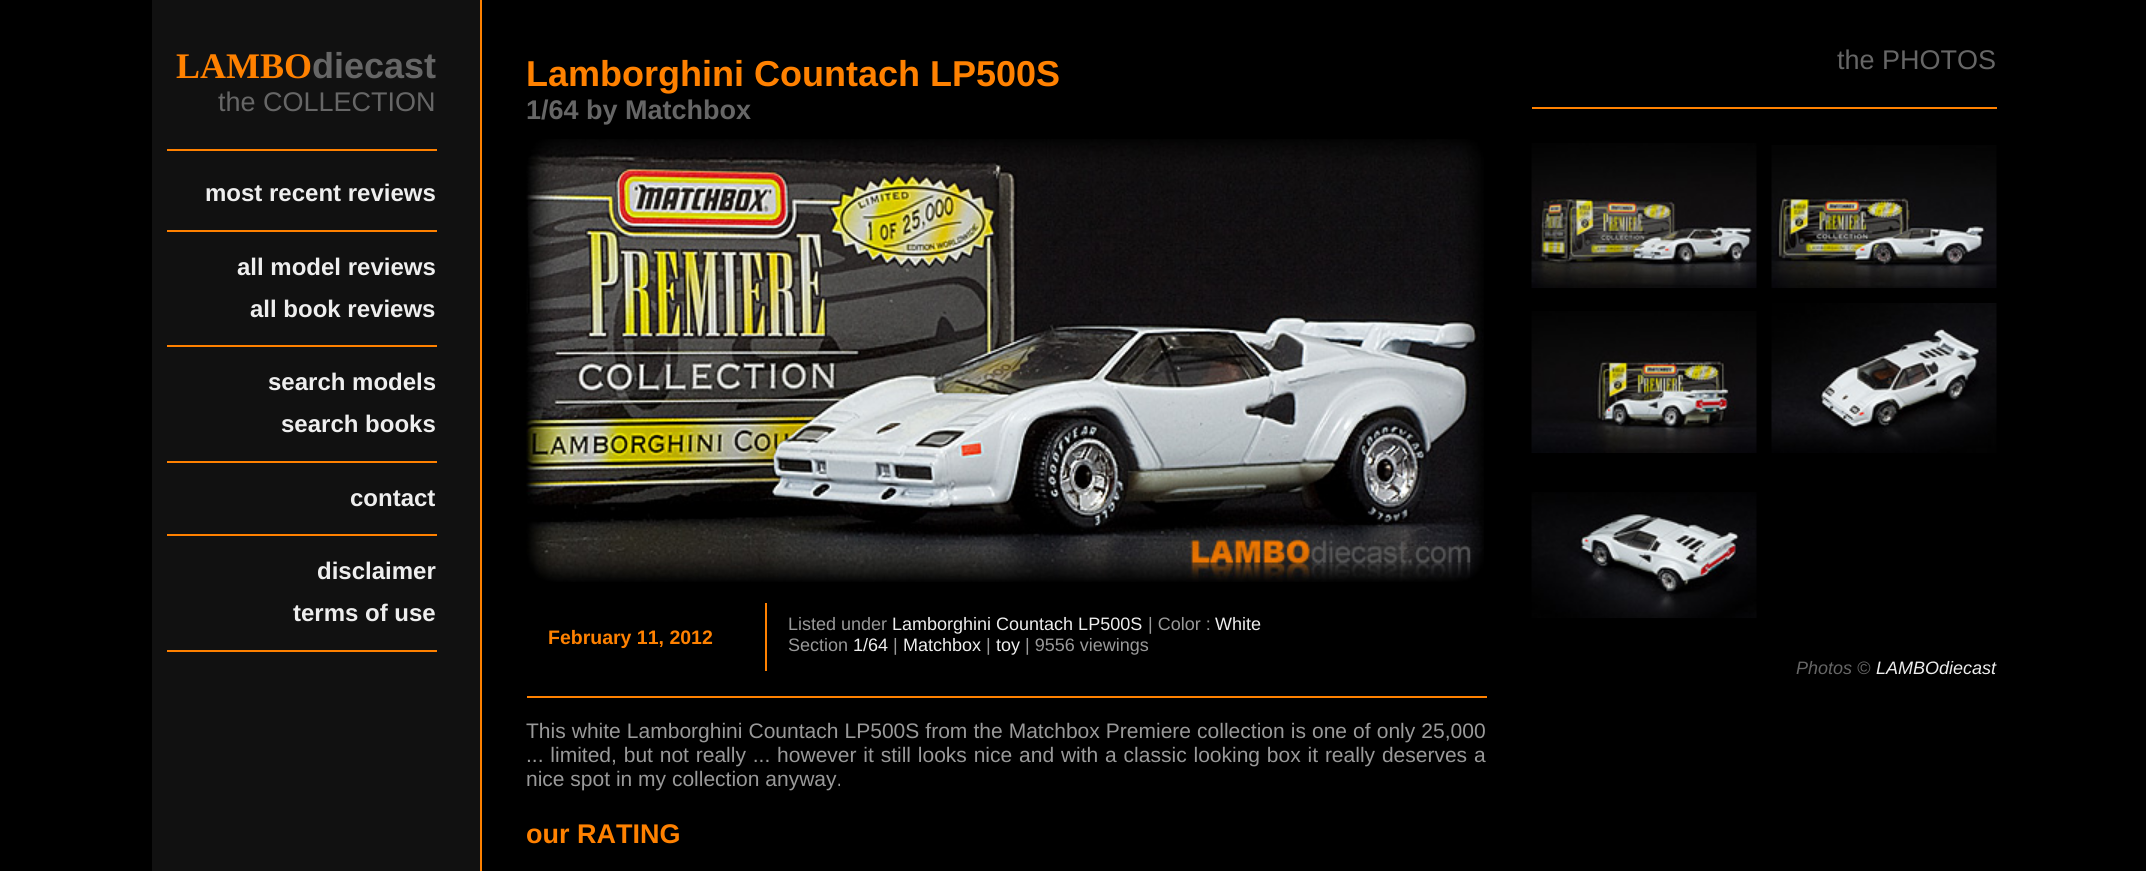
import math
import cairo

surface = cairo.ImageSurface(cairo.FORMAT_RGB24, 2146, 871)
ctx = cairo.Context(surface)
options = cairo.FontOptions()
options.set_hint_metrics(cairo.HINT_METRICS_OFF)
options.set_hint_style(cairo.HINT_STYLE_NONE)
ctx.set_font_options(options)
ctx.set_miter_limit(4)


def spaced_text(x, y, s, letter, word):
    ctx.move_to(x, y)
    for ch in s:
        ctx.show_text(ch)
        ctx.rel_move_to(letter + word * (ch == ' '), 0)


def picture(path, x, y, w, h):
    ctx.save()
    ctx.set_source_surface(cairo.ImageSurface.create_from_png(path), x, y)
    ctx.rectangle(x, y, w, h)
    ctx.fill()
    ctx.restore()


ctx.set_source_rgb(0, 0, 0)
ctx.paint()
ctx.set_source_rgb(0.067, 0.067, 0.067)
ctx.rectangle(152, 0, 328, 871)
ctx.fill()
ctx.set_source_rgb(1, 0.506, 0)
ctx.rectangle(480, 0, 2, 871)
ctx.fill()
ctx.select_font_face("Liberation Serif", cairo.FONT_SLANT_NORMAL, cairo.FONT_WEIGHT_BOLD)
ctx.set_font_size(36)
ctx.move_to(176, 78)
ctx.show_text("LAMBO")
ctx.select_font_face("Liberation Sans", cairo.FONT_SLANT_NORMAL, cairo.FONT_WEIGHT_BOLD)
ctx.set_source_rgb(0.4, 0.4, 0.4)
ctx.move_to(312, 78)
ctx.show_text("diecast")
ctx.set_source_rgb(1, 0.506, 0)
ctx.rectangle(167, 149, 270, 2)
ctx.fill()
ctx.select_font_face("Liberation Sans")
ctx.set_font_size(27)
ctx.set_source_rgb(0.4, 0.4, 0.4)
ctx.move_to(218, 111)
ctx.show_text("the COLLECTION")
ctx.set_source_rgb(1, 0.506, 0)
ctx.rectangle(167, 230, 270, 2)
ctx.fill()
ctx.select_font_face("Liberation Sans", cairo.FONT_SLANT_NORMAL, cairo.FONT_WEIGHT_BOLD)
ctx.set_font_size(24)
ctx.set_source_rgb(0.933, 0.933, 0.933)
ctx.move_to(205, 201)
ctx.show_text("most recent reviews")
ctx.move_to(237, 275)
ctx.show_text("all model reviews")
ctx.set_source_rgb(1, 0.506, 0)
ctx.rectangle(167, 345, 270, 2)
ctx.fill()
ctx.set_source_rgb(0.933, 0.933, 0.933)
ctx.move_to(250, 317)
ctx.show_text("all book reviews")
ctx.move_to(268, 390)
ctx.show_text("search models")
ctx.set_source_rgb(1, 0.506, 0)
ctx.rectangle(167, 461, 270, 2)
ctx.fill()
ctx.set_source_rgb(0.933, 0.933, 0.933)
ctx.move_to(281, 432)
ctx.show_text("search books")
ctx.set_source_rgb(1, 0.506, 0)
ctx.rectangle(167, 534, 270, 2)
ctx.fill()
ctx.set_source_rgb(0.933, 0.933, 0.933)
ctx.move_to(350, 506)
ctx.show_text("contact")
ctx.move_to(317, 579)
ctx.show_text("disclaimer")
ctx.set_source_rgb(1, 0.506, 0)
ctx.rectangle(167, 650, 270, 2)
ctx.fill()
ctx.set_source_rgb(0.933, 0.933, 0.933)
ctx.move_to(293, 621)
ctx.show_text("terms of use")
ctx.set_font_size(36)
ctx.set_source_rgb(1, 0.506, 0)
ctx.move_to(526, 86)
ctx.show_text("Lamborghini Countach LP500S")
ctx.set_font_size(27)
ctx.set_source_rgb(0.4, 0.4, 0.4)
ctx.move_to(526, 119)
ctx.show_text("1/64 by Matchbox")
picture("img1.png", 526, 139, 958, 443)
ctx.set_source_rgb(1, 0.506, 0)
ctx.rectangle(765, 603, 2, 68)
ctx.fill()
ctx.set_font_size(19.5)
ctx.move_to(548, 644)
ctx.show_text("February 11, 2012")
ctx.select_font_face("Liberation Sans")
ctx.set_font_size(18)
ctx.set_source_rgb(0.6, 0.6, 0.6)
ctx.move_to(788, 630)
ctx.show_text("Listed under")
ctx.set_source_rgb(0.933, 0.933, 0.933)
ctx.move_to(892, 630)
ctx.show_text("Lamborghini Countach LP500S")
ctx.set_source_rgb(0.6, 0.6, 0.6)
ctx.move_to(1148, 630)
ctx.show_text("| Color :")
ctx.set_source_rgb(0.933, 0.933, 0.933)
ctx.move_to(1215, 630)
ctx.show_text("White")
ctx.set_source_rgb(0.6, 0.6, 0.6)
ctx.move_to(788, 651)
ctx.show_text("Section")
ctx.set_source_rgb(0.933, 0.933, 0.933)
ctx.move_to(853, 651)
ctx.show_text("1/64")
ctx.set_source_rgb(0.6, 0.6, 0.6)
ctx.move_to(893, 651)
ctx.show_text("|")
ctx.set_source_rgb(0.933, 0.933, 0.933)
ctx.move_to(903, 651)
ctx.show_text("Matchbox")
ctx.set_source_rgb(0.6, 0.6, 0.6)
ctx.move_to(986, 651)
ctx.show_text("|")
ctx.set_source_rgb(0.933, 0.933, 0.933)
ctx.move_to(996, 651)
ctx.show_text("toy")
ctx.set_source_rgb(0.6, 0.6, 0.6)
ctx.move_to(1025, 651)
ctx.show_text("| 9556 viewings")
ctx.set_source_rgb(1, 0.506, 0)
ctx.rectangle(527, 696, 960, 2)
ctx.fill()
ctx.set_font_size(21)
ctx.set_source_rgb(0.6, 0.6, 0.6)
spaced_text(526, 738, "This white Lamborghini Countach LP500S from the Matchbox Premiere collection is one of only 25,000", 0, 0.25)
spaced_text(526, 762, "... limited, but not really ... however it still looks nice and with a classic looking box it really deserves a", 0, 1)
ctx.move_to(526, 786)
ctx.show_text("nice spot in my collection anyway.")
ctx.select_font_face("Liberation Sans", cairo.FONT_SLANT_NORMAL, cairo.FONT_WEIGHT_BOLD)
ctx.set_font_size(27)
ctx.set_source_rgb(1, 0.506, 0)
ctx.move_to(526, 843)
ctx.show_text("our RATING")
ctx.rectangle(1532, 107, 465, 2)
ctx.fill()
ctx.select_font_face("Liberation Sans")
ctx.set_source_rgb(0.4, 0.4, 0.4)
ctx.move_to(1837, 69)
ctx.show_text("the PHOTOS")
picture("img2.png", 1531, 143, 226, 145)
picture("img3.png", 1771, 145, 226, 143)
picture("img4.png", 1531, 311, 226, 142)
picture("img5.png", 1771, 303, 226, 150)
picture("img6.png", 1531, 492, 226, 126)
ctx.select_font_face("Liberation Sans", cairo.FONT_SLANT_ITALIC)
ctx.set_font_size(18)
ctx.move_to(1796, 674)
ctx.show_text("Photos ©")
ctx.set_source_rgb(0.933, 0.933, 0.933)
ctx.move_to(1876, 674)
ctx.show_text("LAMBOdiecast")
surface.write_to_png("page.png")
